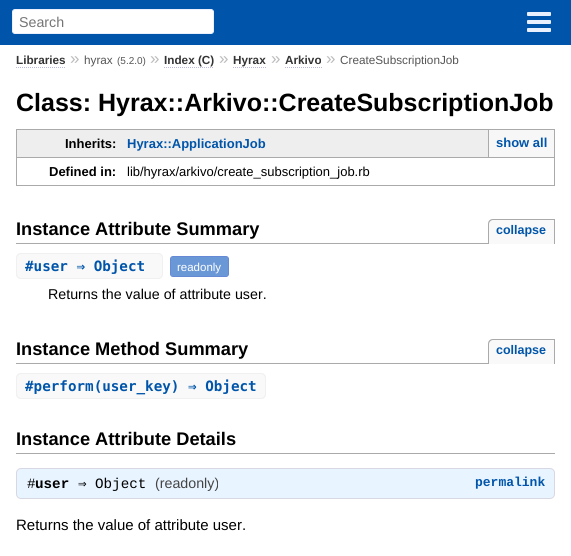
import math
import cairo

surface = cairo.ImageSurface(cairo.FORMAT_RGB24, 571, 556)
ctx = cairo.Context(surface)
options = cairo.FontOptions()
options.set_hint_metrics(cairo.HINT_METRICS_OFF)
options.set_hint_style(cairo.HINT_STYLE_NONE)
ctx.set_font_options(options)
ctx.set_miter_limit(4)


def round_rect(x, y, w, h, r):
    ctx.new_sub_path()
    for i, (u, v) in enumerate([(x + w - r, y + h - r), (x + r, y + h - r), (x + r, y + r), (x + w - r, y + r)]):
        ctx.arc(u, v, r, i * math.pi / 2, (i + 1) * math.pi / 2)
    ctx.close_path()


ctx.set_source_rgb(1, 1, 1)
ctx.paint()
ctx.set_source_rgb(0, 0.333, 0.667)
ctx.rectangle(0, 0, 571, 45)
ctx.fill()
ctx.set_source_rgb(1, 1, 1)
round_rect(12.5, 9.5, 201, 24, 2.5)
ctx.fill_preserve()
ctx.set_source_rgb(0.918, 0.941, 1)
ctx.set_line_width(1)
ctx.stroke()
ctx.select_font_face("Liberation Sans")
ctx.set_font_size(14.25)
ctx.set_source_rgb(0.459, 0.459, 0.459)
ctx.move_to(19, 27)
ctx.show_text("Search")
ctx.set_source_rgb(0.918, 0.941, 1)
round_rect(527, 12, 24, 4, 1)
ctx.fill()
round_rect(527, 20, 24, 4, 1)
ctx.fill()
round_rect(527, 28, 24, 4, 1)
ctx.fill()
ctx.select_font_face("Liberation Sans", cairo.FONT_SLANT_NORMAL, cairo.FONT_WEIGHT_BOLD)
ctx.set_font_size(11.75)
ctx.set_source_rgb(0.2, 0.2, 0.2)
ctx.move_to(16, 64)
ctx.show_text("Libraries")
ctx.new_path()
ctx.move_to(16, 67.5)
ctx.line_to(66, 67.5)
ctx.set_source_rgb(0.733, 0.733, 0.867)
ctx.set_dash([1, 1])
ctx.stroke()
ctx.select_font_face("Liberation Sans")
ctx.set_font_size(17)
ctx.set_source_rgb(0.733, 0.733, 0.733)
ctx.move_to(70, 64)
ctx.show_text("»")
ctx.set_font_size(11.75)
ctx.set_source_rgb(0.333, 0.333, 0.333)
ctx.move_to(84, 64)
ctx.show_text("hyrax")
ctx.set_font_size(10)
ctx.move_to(117, 64)
ctx.show_text("(5.2.0)")
ctx.set_font_size(17)
ctx.set_source_rgb(0.733, 0.733, 0.733)
ctx.move_to(150, 64)
ctx.show_text("»")
ctx.select_font_face("Liberation Sans", cairo.FONT_SLANT_NORMAL, cairo.FONT_WEIGHT_BOLD)
ctx.set_font_size(11.75)
ctx.set_source_rgb(0.2, 0.2, 0.2)
ctx.move_to(164, 64)
ctx.show_text("Index (C)")
ctx.new_path()
ctx.move_to(164, 67.5)
ctx.line_to(214, 67.5)
ctx.set_source_rgb(0.733, 0.733, 0.867)
ctx.stroke()
ctx.select_font_face("Liberation Sans")
ctx.set_font_size(17)
ctx.set_source_rgb(0.733, 0.733, 0.733)
ctx.move_to(219, 64)
ctx.show_text("»")
ctx.select_font_face("Liberation Sans", cairo.FONT_SLANT_NORMAL, cairo.FONT_WEIGHT_BOLD)
ctx.set_font_size(11.75)
ctx.set_source_rgb(0.2, 0.2, 0.2)
ctx.move_to(233, 64)
ctx.show_text("Hyrax")
ctx.new_path()
ctx.move_to(233, 67.5)
ctx.line_to(266, 67.5)
ctx.set_source_rgb(0.733, 0.733, 0.867)
ctx.stroke()
ctx.select_font_face("Liberation Sans")
ctx.set_font_size(17)
ctx.set_source_rgb(0.733, 0.733, 0.733)
ctx.move_to(271, 64)
ctx.show_text("»")
ctx.select_font_face("Liberation Sans", cairo.FONT_SLANT_NORMAL, cairo.FONT_WEIGHT_BOLD)
ctx.set_font_size(11.75)
ctx.set_source_rgb(0.2, 0.2, 0.2)
ctx.move_to(285, 64)
ctx.show_text("Arkivo")
ctx.new_path()
ctx.move_to(285, 67.5)
ctx.line_to(322, 67.5)
ctx.set_source_rgb(0.733, 0.733, 0.867)
ctx.stroke()
ctx.select_font_face("Liberation Sans")
ctx.set_font_size(17)
ctx.set_source_rgb(0.733, 0.733, 0.733)
ctx.move_to(326, 64)
ctx.show_text("»")
ctx.set_font_size(11.75)
ctx.set_source_rgb(0.333, 0.333, 0.333)
ctx.move_to(340, 64)
ctx.show_text("CreateSubscriptionJob")
ctx.select_font_face("Liberation Sans", cairo.FONT_SLANT_NORMAL, cairo.FONT_WEIGHT_BOLD)
ctx.set_font_size(25)
ctx.set_source_rgb(0, 0, 0)
ctx.move_to(16, 111)
ctx.show_text("Class: Hyrax::Arkivo::CreateSubscriptionJob")
ctx.set_source_rgb(0.933, 0.933, 0.933)
ctx.rectangle(17, 130, 471, 27)
ctx.fill()
ctx.set_source_rgb(0.667, 0.667, 0.667)
ctx.rectangle(16, 129, 539, 1)
ctx.fill()
ctx.rectangle(16, 129, 1, 28)
ctx.fill()
ctx.set_font_size(13)
ctx.set_source_rgb(0, 0, 0)
ctx.move_to(65, 148)
ctx.show_text("Inherits:")
ctx.set_source_rgb(0.667, 0.667, 0.667)
ctx.rectangle(16, 157, 539, 1)
ctx.fill()
ctx.rectangle(554, 129, 1, 57)
ctx.fill()
ctx.set_source_rgb(0, 0.333, 0.667)
ctx.move_to(127, 148)
ctx.show_text("Hyrax::ApplicationJob")
ctx.set_source_rgb(0.965, 0.965, 0.965)
ctx.rectangle(489, 130, 65, 27)
ctx.fill()
ctx.set_source_rgb(0.667, 0.667, 0.667)
ctx.rectangle(488, 130, 1, 27)
ctx.fill()
ctx.set_source_rgb(0, 0.333, 0.667)
ctx.move_to(496, 147)
ctx.show_text("show all")
ctx.set_source_rgb(0.667, 0.667, 0.667)
ctx.rectangle(16, 185, 111, 1)
ctx.fill()
ctx.rectangle(16, 157, 1, 29)
ctx.fill()
ctx.set_source_rgb(0, 0, 0)
ctx.move_to(49, 176)
ctx.show_text("Defined in:")
ctx.set_source_rgb(0.667, 0.667, 0.667)
ctx.rectangle(127, 185, 428, 1)
ctx.fill()
ctx.select_font_face("Liberation Sans")
ctx.set_source_rgb(0, 0, 0)
ctx.move_to(127, 176)
ctx.show_text("lib/hyrax/arkivo/create_subscription_job.rb")
ctx.set_source_rgb(0.667, 0.667, 0.667)
ctx.rectangle(16, 243, 472, 1)
ctx.fill()
ctx.select_font_face("Liberation Sans", cairo.FONT_SLANT_NORMAL, cairo.FONT_WEIGHT_BOLD)
ctx.set_font_size(18.25)
ctx.set_source_rgb(0, 0, 0)
ctx.move_to(16, 235)
ctx.show_text("Instance Attribute Summary")
ctx.set_source_rgb(0.973, 0.973, 0.973)
ctx.new_path()
ctx.move_to(493, 219)
ctx.line_to(555, 219)
ctx.line_to(555, 244)
ctx.line_to(488, 244)
ctx.line_to(488, 224)
ctx.curve_to(488, 221, 490, 219, 493, 219)
ctx.close_path()
ctx.fill()
ctx.set_source_rgb(0.667, 0.667, 0.667)
ctx.set_fill_rule(cairo.FILL_RULE_EVEN_ODD)
ctx.new_path()
ctx.move_to(493, 219)
ctx.line_to(555, 219)
ctx.line_to(555, 244)
ctx.line_to(488, 244)
ctx.line_to(488, 224)
ctx.curve_to(488, 221, 490, 219, 493, 219)
ctx.close_path()
ctx.move_to(493, 220)
ctx.line_to(554, 220)
ctx.line_to(554, 244)
ctx.line_to(489, 244)
ctx.line_to(489, 224)
ctx.curve_to(489, 222, 491, 220, 493, 220)
ctx.close_path()
ctx.fill()
ctx.set_font_size(12.5)
ctx.set_source_rgb(0, 0.333, 0.667)
ctx.move_to(496, 234)
ctx.show_text("collapse")
ctx.set_source_rgb(0.973, 0.973, 0.973)
ctx.new_path()
ctx.move_to(21, 253)
ctx.line_to(33, 253)
ctx.line_to(33, 279)
ctx.line_to(21, 279)
ctx.curve_to(18, 279, 16, 277, 16, 274)
ctx.line_to(16, 258)
ctx.curve_to(16, 255, 18, 253, 21, 253)
ctx.close_path()
ctx.fill()
ctx.set_source_rgb(0.941, 0.941, 0.941)
ctx.new_path()
ctx.move_to(21, 253)
ctx.line_to(33, 253)
ctx.line_to(33, 279)
ctx.line_to(21, 279)
ctx.curve_to(18, 279, 16, 277, 16, 274)
ctx.line_to(16, 258)
ctx.curve_to(16, 255, 18, 253, 21, 253)
ctx.close_path()
ctx.move_to(21, 254)
ctx.line_to(33, 254)
ctx.line_to(33, 278)
ctx.line_to(21, 278)
ctx.curve_to(19, 278, 17, 276, 17, 274)
ctx.line_to(17, 258)
ctx.curve_to(17, 256, 19, 254, 21, 254)
ctx.close_path()
ctx.fill()
ctx.set_source_rgb(0.973, 0.973, 0.973)
ctx.rectangle(33, 254, 35, 24)
ctx.fill()
ctx.new_path()
ctx.move_to(68, 253)
ctx.line_to(158, 253)
ctx.curve_to(161, 253, 163, 255, 163, 258)
ctx.line_to(163, 274)
ctx.curve_to(163, 277, 161, 279, 158, 279)
ctx.line_to(68, 279)
ctx.close_path()
ctx.fill()
ctx.set_source_rgb(0.941, 0.941, 0.941)
ctx.new_path()
ctx.move_to(68, 253)
ctx.line_to(158, 253)
ctx.curve_to(161, 253, 163, 255, 163, 258)
ctx.line_to(163, 274)
ctx.curve_to(163, 277, 161, 279, 158, 279)
ctx.line_to(68, 279)
ctx.close_path()
ctx.move_to(68, 254)
ctx.line_to(158, 254)
ctx.curve_to(160, 254, 162, 256, 162, 258)
ctx.line_to(162, 274)
ctx.curve_to(162, 276, 160, 278, 158, 278)
ctx.line_to(68, 278)
ctx.close_path()
ctx.fill()
ctx.select_font_face("DejaVu Sans Mono", cairo.FONT_SLANT_NORMAL, cairo.FONT_WEIGHT_BOLD)
ctx.set_font_size(14.25)
ctx.set_source_rgb(0, 0.333, 0.667)
ctx.move_to(25, 271)
ctx.show_text("#user ⇒ Object")
ctx.set_source_rgb(0.941, 0.941, 0.941)
ctx.rectangle(33, 253, 35, 1)
ctx.fill()
ctx.rectangle(33, 278, 35, 1)
ctx.fill()
ctx.set_source_rgb(0.416, 0.596, 0.839)
round_rect(170.5, 256.5, 58, 20, 2.5)
ctx.fill_preserve()
ctx.set_source_rgb(0.4, 0.537, 0.839)
ctx.set_dash([])
ctx.stroke()
ctx.select_font_face("Liberation Sans")
ctx.set_font_size(11.5)
ctx.set_source_rgb(1, 1, 1)
ctx.move_to(177, 271)
ctx.show_text("readonly")
ctx.set_font_size(14.25)
ctx.set_source_rgb(0, 0, 0)
ctx.move_to(48, 299)
ctx.show_text("Returns the value of attribute user.")
ctx.set_source_rgb(0.667, 0.667, 0.667)
ctx.rectangle(16, 363, 472, 1)
ctx.fill()
ctx.select_font_face("Liberation Sans", cairo.FONT_SLANT_NORMAL, cairo.FONT_WEIGHT_BOLD)
ctx.set_font_size(18.25)
ctx.set_source_rgb(0, 0, 0)
ctx.move_to(16, 355)
ctx.show_text("Instance Method Summary")
ctx.set_source_rgb(0.973, 0.973, 0.973)
ctx.new_path()
ctx.move_to(493, 339)
ctx.line_to(555, 339)
ctx.line_to(555, 364)
ctx.line_to(488, 364)
ctx.line_to(488, 344)
ctx.curve_to(488, 341, 490, 339, 493, 339)
ctx.close_path()
ctx.fill()
ctx.set_source_rgb(0.667, 0.667, 0.667)
ctx.new_path()
ctx.move_to(493, 339)
ctx.line_to(555, 339)
ctx.line_to(555, 364)
ctx.line_to(488, 364)
ctx.line_to(488, 344)
ctx.curve_to(488, 341, 490, 339, 493, 339)
ctx.close_path()
ctx.move_to(493, 340)
ctx.line_to(554, 340)
ctx.line_to(554, 364)
ctx.line_to(489, 364)
ctx.line_to(489, 344)
ctx.curve_to(489, 342, 491, 340, 493, 340)
ctx.close_path()
ctx.fill()
ctx.set_font_size(12.5)
ctx.set_source_rgb(0, 0.333, 0.667)
ctx.move_to(496, 354)
ctx.show_text("collapse")
ctx.set_source_rgb(0.973, 0.973, 0.973)
ctx.new_path()
ctx.move_to(21, 373)
ctx.line_to(33, 373)
ctx.line_to(33, 399)
ctx.line_to(21, 399)
ctx.curve_to(18, 399, 16, 397, 16, 394)
ctx.line_to(16, 378)
ctx.curve_to(16, 375, 18, 373, 21, 373)
ctx.close_path()
ctx.fill()
ctx.set_source_rgb(0.941, 0.941, 0.941)
ctx.new_path()
ctx.move_to(21, 373)
ctx.line_to(33, 373)
ctx.line_to(33, 399)
ctx.line_to(21, 399)
ctx.curve_to(18, 399, 16, 397, 16, 394)
ctx.line_to(16, 378)
ctx.curve_to(16, 375, 18, 373, 21, 373)
ctx.close_path()
ctx.move_to(21, 374)
ctx.line_to(33, 374)
ctx.line_to(33, 398)
ctx.line_to(21, 398)
ctx.curve_to(19, 398, 17, 396, 17, 394)
ctx.line_to(17, 378)
ctx.curve_to(17, 376, 19, 374, 21, 374)
ctx.close_path()
ctx.fill()
ctx.set_source_rgb(0.973, 0.973, 0.973)
ctx.rectangle(33, 374, 60, 24)
ctx.fill()
ctx.new_path()
ctx.move_to(93, 373)
ctx.line_to(261, 373)
ctx.curve_to(264, 373, 266, 375, 266, 378)
ctx.line_to(266, 394)
ctx.curve_to(266, 397, 264, 399, 261, 399)
ctx.line_to(93, 399)
ctx.close_path()
ctx.fill()
ctx.set_source_rgb(0.941, 0.941, 0.941)
ctx.new_path()
ctx.move_to(93, 373)
ctx.line_to(261, 373)
ctx.curve_to(264, 373, 266, 375, 266, 378)
ctx.line_to(266, 394)
ctx.curve_to(266, 397, 264, 399, 261, 399)
ctx.line_to(93, 399)
ctx.close_path()
ctx.move_to(93, 374)
ctx.line_to(261, 374)
ctx.curve_to(263, 374, 265, 376, 265, 378)
ctx.line_to(265, 394)
ctx.curve_to(265, 396, 263, 398, 261, 398)
ctx.line_to(93, 398)
ctx.close_path()
ctx.fill()
ctx.select_font_face("DejaVu Sans Mono", cairo.FONT_SLANT_NORMAL, cairo.FONT_WEIGHT_BOLD)
ctx.set_font_size(14.25)
ctx.set_source_rgb(0, 0.333, 0.667)
ctx.move_to(25, 391)
ctx.show_text("#perform(user_key) ⇒ Object")
ctx.set_source_rgb(0.941, 0.941, 0.941)
ctx.rectangle(33, 373, 60, 1)
ctx.fill()
ctx.rectangle(33, 398, 60, 1)
ctx.fill()
ctx.set_source_rgb(0.667, 0.667, 0.667)
ctx.rectangle(16, 453, 539, 1)
ctx.fill()
ctx.select_font_face("Liberation Sans", cairo.FONT_SLANT_NORMAL, cairo.FONT_WEIGHT_BOLD)
ctx.set_font_size(18.25)
ctx.set_source_rgb(0, 0, 0)
ctx.move_to(16, 445)
ctx.show_text("Instance Attribute Details")
ctx.set_source_rgb(0.91, 0.957, 1)
round_rect(16.5, 468.5, 538, 30, 4.5)
ctx.fill_preserve()
ctx.set_source_rgb(0.847, 0.847, 0.898)
ctx.stroke()
ctx.select_font_face("Liberation Mono")
ctx.set_font_size(14.25)
ctx.set_source_rgb(0, 0, 0)
ctx.move_to(27, 488)
ctx.show_text("#")
ctx.select_font_face("Liberation Mono", cairo.FONT_SLANT_NORMAL, cairo.FONT_WEIGHT_BOLD)
ctx.move_to(35, 488)
ctx.show_text("user")
ctx.select_font_face("DejaVu Sans Mono")
ctx.move_to(78, 488)
ctx.show_text("⇒")
ctx.select_font_face("Liberation Mono")
ctx.move_to(95, 488)
ctx.show_text("Object")
ctx.select_font_face("Liberation Sans")
ctx.set_source_rgb(0.267, 0.267, 0.267)
ctx.move_to(155, 488)
ctx.show_text("(readonly)")
ctx.select_font_face("Liberation Mono", cairo.FONT_SLANT_NORMAL, cairo.FONT_WEIGHT_BOLD)
ctx.set_font_size(13)
ctx.set_source_rgb(0, 0.333, 0.667)
ctx.move_to(475, 486)
ctx.show_text("permalink")
ctx.select_font_face("Liberation Sans")
ctx.set_font_size(15)
ctx.set_source_rgb(0, 0, 0)
ctx.move_to(16, 530)
ctx.show_text("Returns the value of attribute user.")
surface.write_to_png("page.png")
